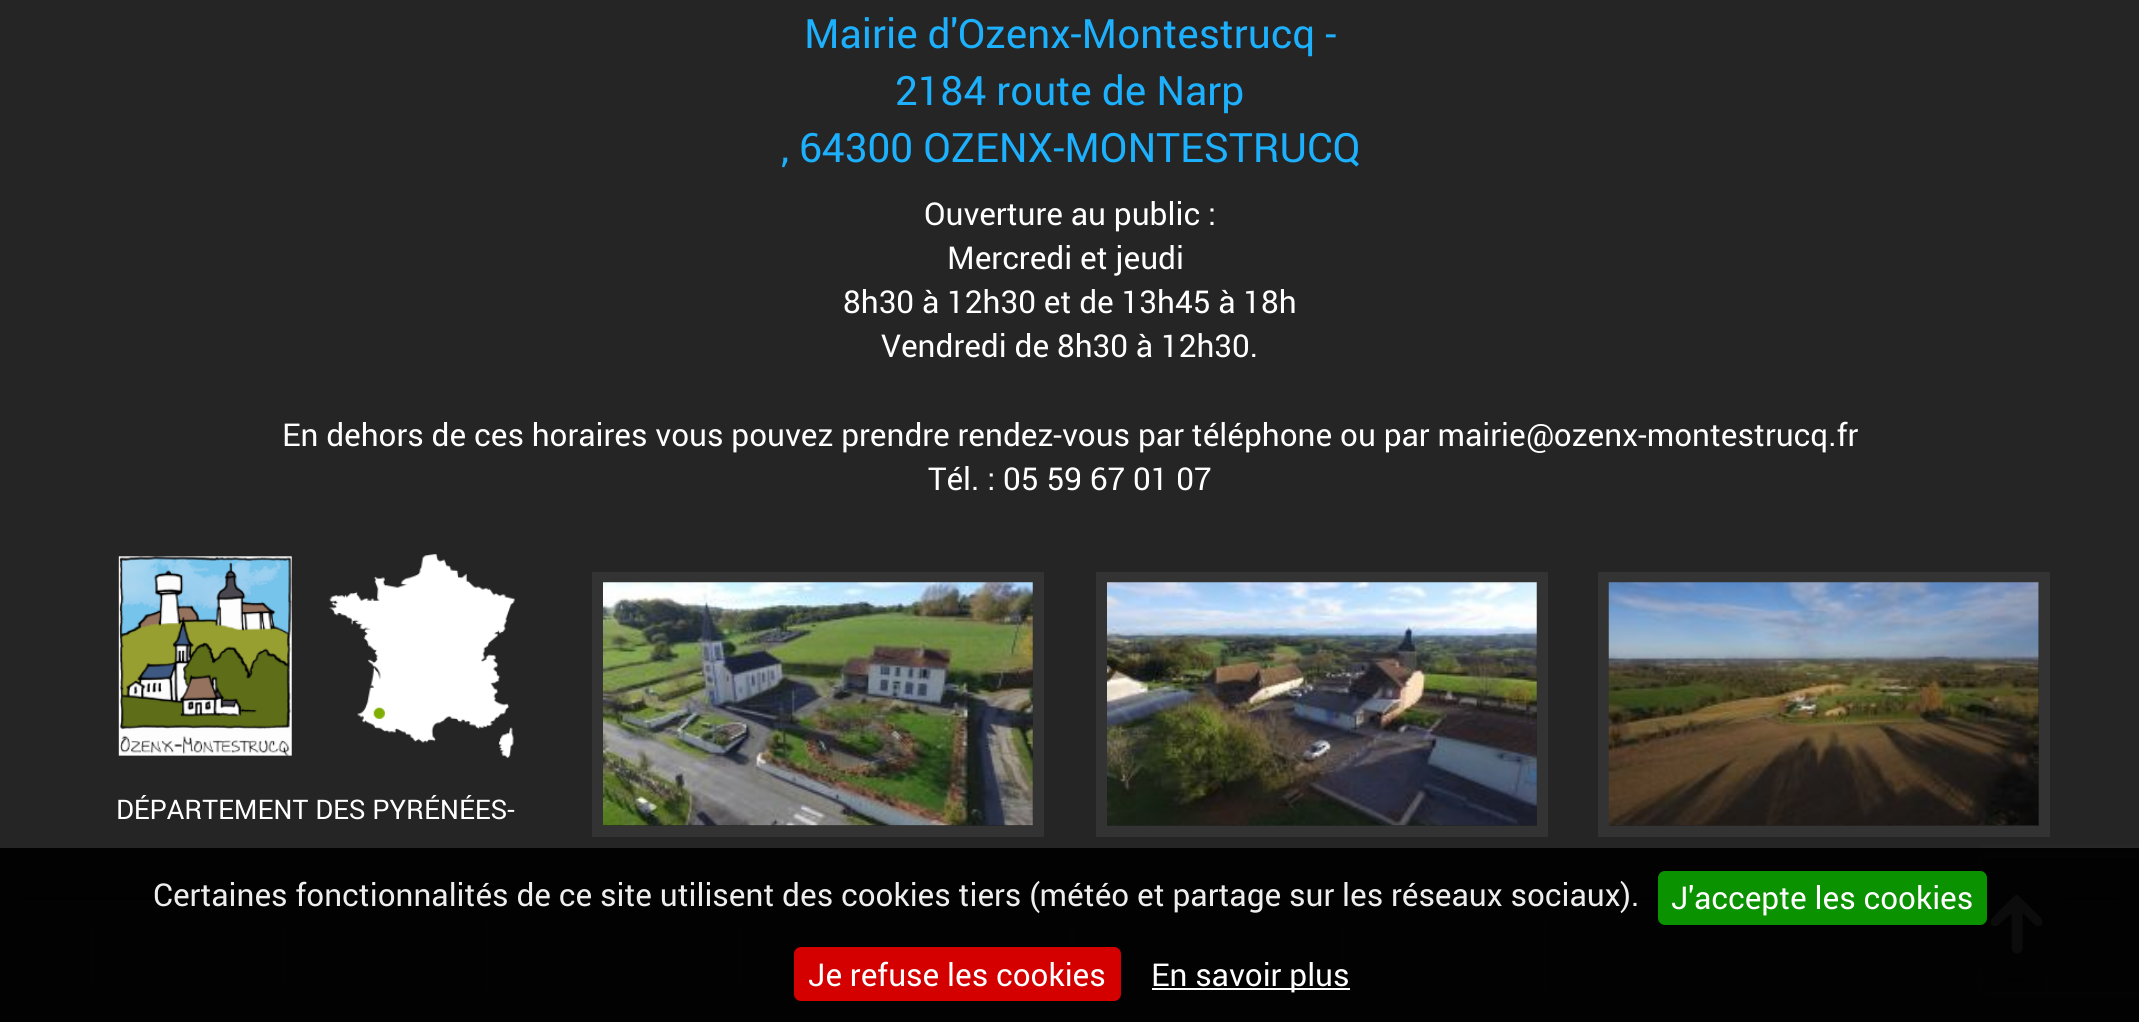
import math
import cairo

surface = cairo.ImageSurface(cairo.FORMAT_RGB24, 2139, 1022)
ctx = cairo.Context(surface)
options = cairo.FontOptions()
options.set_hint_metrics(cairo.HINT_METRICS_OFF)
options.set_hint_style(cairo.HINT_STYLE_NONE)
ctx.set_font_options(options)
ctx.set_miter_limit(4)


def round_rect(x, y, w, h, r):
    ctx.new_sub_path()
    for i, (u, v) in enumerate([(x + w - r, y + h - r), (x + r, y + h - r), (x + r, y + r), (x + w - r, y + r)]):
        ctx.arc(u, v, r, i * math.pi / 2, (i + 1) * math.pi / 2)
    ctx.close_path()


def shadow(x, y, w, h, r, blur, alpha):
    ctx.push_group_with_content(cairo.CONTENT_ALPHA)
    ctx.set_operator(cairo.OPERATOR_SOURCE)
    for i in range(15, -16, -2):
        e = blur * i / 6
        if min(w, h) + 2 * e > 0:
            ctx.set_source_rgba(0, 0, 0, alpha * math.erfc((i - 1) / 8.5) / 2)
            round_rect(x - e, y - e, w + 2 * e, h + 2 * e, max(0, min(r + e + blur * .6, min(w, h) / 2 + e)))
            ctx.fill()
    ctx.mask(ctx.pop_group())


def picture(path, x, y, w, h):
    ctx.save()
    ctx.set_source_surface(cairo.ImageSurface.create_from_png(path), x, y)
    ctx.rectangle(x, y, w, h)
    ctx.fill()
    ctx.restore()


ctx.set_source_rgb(0.145, 0.145, 0.145)
ctx.paint()
ctx.select_font_face("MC")
ctx.set_font_size(40.5)
ctx.set_source_rgb(0.11, 0.69, 0.992)
ctx.move_to(804, 48)
ctx.show_text("Mairie d'Ozenx-Montestrucq -")
ctx.move_to(895, 105)
ctx.show_text("2184 route de Narp")
ctx.move_to(781, 162)
ctx.show_text(", 64300 OZENX-MONTESTRUCQ")
ctx.set_font_size(31.5)
ctx.set_source_rgb(1, 1, 1)
ctx.move_to(924, 225)
ctx.show_text("Ouverture au public :")
ctx.move_to(947, 269)
ctx.show_text("Mercredi et jeudi")
ctx.move_to(843, 313)
ctx.show_text("8h30 à 12h30 et de 13h45 à 18h")
ctx.move_to(881, 357)
ctx.show_text("Vendredi de 8h30 à 12h30.")
ctx.move_to(282, 446)
ctx.show_text("En dehors de ces horaires vous pouvez prendre rendez-vous par téléphone ou par mairie@ozenx-montestrucq.fr")
ctx.move_to(928, 490)
ctx.show_text("Tél. : 05 59 67 01 07")
picture("img1.png", 118, 554, 397, 204)
ctx.set_font_size(27)
ctx.move_to(116, 819)
ctx.show_text("DÉPARTEMENT DES PYRÉNÉES-")
ctx.rectangle(597.5, 577.5, 441, 254)
ctx.set_source_rgb(0.2, 0.2, 0.2)
ctx.set_line_width(11)
ctx.stroke()
picture("img2.png", 603, 582, 430, 244)
ctx.rectangle(1101.5, 577.5, 441, 254)
ctx.stroke()
picture("img3.png", 1107, 582, 430, 244)
ctx.rectangle(1603.5, 577.5, 441, 254)
ctx.stroke()
picture("img4.png", 1608, 582, 431, 244)
ctx.set_source_rgb(0.082, 0.082, 0.082)
ctx.rectangle(23, 898, 2094, 2)
ctx.fill()
ctx.set_source_rgb(0.231, 0.231, 0.231)
ctx.rectangle(23, 900, 2094, 2)
ctx.fill()
ctx.rectangle(284, 923, 2, 67)
ctx.fill()
ctx.rectangle(90, 923, 2, 67)
ctx.fill()
ctx.rectangle(486, 923, 2, 67)
ctx.fill()
ctx.rectangle(740, 923, 2, 67)
ctx.fill()
ctx.rectangle(1071, 923, 2, 24)
ctx.fill()
ctx.rectangle(1341, 923, 2, 67)
ctx.fill()
ctx.rectangle(1544, 923, 2, 67)
ctx.fill()
ctx.rectangle(2045, 923, 2, 67)
ctx.fill()
ctx.save()
ctx.set_fill_rule(cairo.FILL_RULE_EVEN_ODD)
ctx.new_path()
ctx.move_to(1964, 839)
ctx.line_to(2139, 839)
ctx.line_to(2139, 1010)
ctx.line_to(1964, 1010)
ctx.close_path()
ctx.move_to(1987, 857)
ctx.line_to(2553, 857)
ctx.curve_to(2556, 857, 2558, 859, 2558, 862)
ctx.line_to(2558, 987)
ctx.curve_to(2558, 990, 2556, 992, 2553, 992)
ctx.line_to(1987, 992)
ctx.curve_to(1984, 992, 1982, 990, 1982, 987)
ctx.line_to(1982, 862)
ctx.curve_to(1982, 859, 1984, 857, 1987, 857)
ctx.close_path()
ctx.clip()
ctx.set_source_rgb(0.502, 0.502, 0.502)
shadow(1982, 857, 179, 135, 5, 5.5, 1)
ctx.restore()
ctx.save()
ctx.set_fill_rule(cairo.FILL_RULE_EVEN_ODD)
ctx.new_path()
ctx.move_to(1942, 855)
ctx.line_to(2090, 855)
ctx.line_to(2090, 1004)
ctx.line_to(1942, 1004)
ctx.close_path()
ctx.move_to(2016, 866)
ctx.curve_to(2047, 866, 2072, 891, 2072, 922)
ctx.line_to(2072, 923)
ctx.curve_to(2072, 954, 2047, 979, 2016, 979)
ctx.curve_to(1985, 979, 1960, 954, 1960, 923)
ctx.line_to(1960, 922)
ctx.curve_to(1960, 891, 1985, 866, 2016, 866)
ctx.close_path()
ctx.clip()
ctx.set_source_rgb(0, 0, 0)
shadow(1960, 873, 112, 113, 56, 5.5, 0.19)
ctx.restore()
ctx.set_source_rgba(0.145, 0.145, 0.145, 0.97)
round_rect(1960, 866, 112, 113, 56)
ctx.fill()
picture("img5.png", 1990, 894, 53, 60)
ctx.set_source_rgba(0, 0, 0, 0.95)
ctx.rectangle(0, 848, 2139, 174)
ctx.fill()
ctx.set_font_size(31.5)
ctx.set_source_rgb(0.933, 0.933, 0.933)
ctx.move_to(153, 906)
ctx.show_text("Certaines fonctionnalités de ce site utilisent des cookies tiers (météo et partage sur les réseaux sociaux).")
ctx.set_source_rgb(0.043, 0.573, 0)
round_rect(1658, 871, 329, 54, 7)
ctx.fill()
ctx.set_source_rgb(1, 1, 1)
ctx.move_to(1671, 909)
ctx.show_text("J'accepte les cookies")
ctx.set_source_rgb(0.831, 0, 0)
round_rect(794, 947, 327, 54, 7)
ctx.fill()
ctx.set_source_rgb(1, 1, 1)
ctx.move_to(808, 986)
ctx.show_text("Je refuse les cookies")
ctx.rectangle(1152, 988, 198, 2)
ctx.fill()
ctx.move_to(1151, 986)
ctx.show_text("En savoir plus")
surface.write_to_png("page.png")
